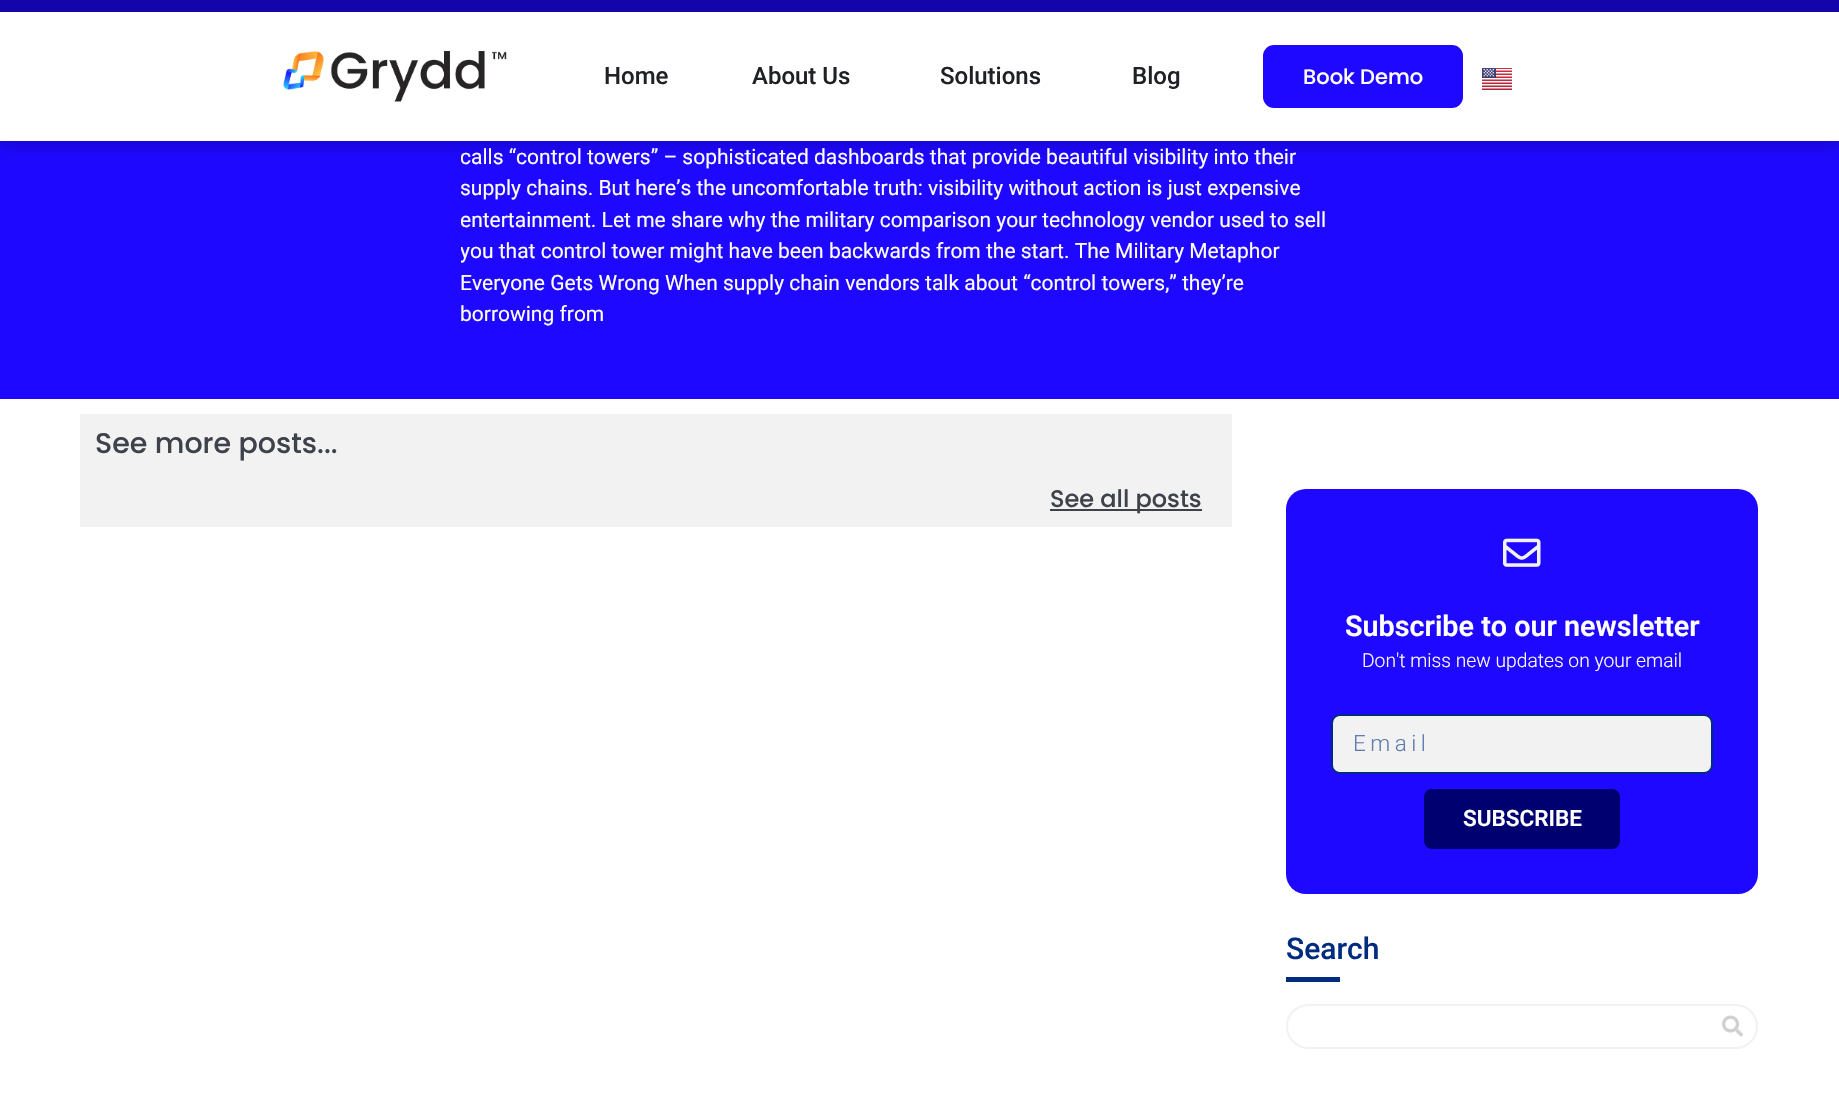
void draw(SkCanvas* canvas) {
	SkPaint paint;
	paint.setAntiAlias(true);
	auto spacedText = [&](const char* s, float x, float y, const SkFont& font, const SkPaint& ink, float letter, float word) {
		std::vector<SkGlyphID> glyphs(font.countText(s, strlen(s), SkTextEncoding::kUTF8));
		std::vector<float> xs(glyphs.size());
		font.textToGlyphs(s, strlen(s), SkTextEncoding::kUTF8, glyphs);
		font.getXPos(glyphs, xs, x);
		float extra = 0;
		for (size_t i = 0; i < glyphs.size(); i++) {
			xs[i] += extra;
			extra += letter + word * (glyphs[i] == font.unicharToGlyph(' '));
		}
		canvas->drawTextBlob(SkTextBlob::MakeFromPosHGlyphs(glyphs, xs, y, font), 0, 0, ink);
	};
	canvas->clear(0xffffffff);
	paint.setColor(0xff1e08ff);
	canvas->drawRect(SkRect::MakeXYWH(0, 141, 1839, 258), paint);
	paint.setColor(0x33000000);
	paint.setMaskFilter(SkMaskFilter::MakeBlur(kNormal_SkBlurStyle, 7.5));
	canvas->drawRect(SkRect::MakeXYWH(-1, 2, 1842, 144), paint);
	paint.setMaskFilter(nullptr);
	paint.setColor(0xffffffff);
	canvas->drawRect(SkRect::MakeXYWH(0, 12, 1839, 129), paint);
	paint.setColor(0xff1405aa);
	canvas->drawRect(SkRect::MakeXYWH(0, 0, 1839, 12), paint);
	canvas->drawImageRect(SkImages::DeferredFromEncodedData(SkData::MakeFromFileName("img1.png")), SkRect::MakeXYWH(283, 51, 224, 51), SkSamplingOptions());
	SkFont f1(fontMgr->matchFamilyStyle("Roboto", SkFontStyle(500, SkFontStyle::kNormal_Width, SkFontStyle::kUpright_Slant)), 24);
	f1.setSubpixel(true);
	paint.setColor(0xff1f2124);
	canvas->drawString("Home", 604, 84, f1, paint);
	canvas->drawString("About Us", 752, 84, f1, paint);
	canvas->drawString("Solutions", 940, 84, f1, paint);
	canvas->drawString("Blog", 1132, 84, f1, paint);
	paint.setColor(0xff1e08ff);
	canvas->drawRoundRect(SkRect::MakeXYWH(1264.5, 46.5, 197, 60), 9.5, 9.5, paint);
	paint.setStroke(true);
	paint.setStrokeWidth(3);
	canvas->drawRoundRect(SkRect::MakeXYWH(1264.5, 46.5, 197, 60), 9.5, 9.5, paint);
	SkFont f2(fontMgr->matchFamilyStyle("Poppins", SkFontStyle(500, SkFontStyle::kNormal_Width, SkFontStyle::kUpright_Slant)), 21);
	f2.setSubpixel(true);
	paint.setStroke(false);
	paint.setColor(0xffffffff);
	canvas->drawString("Book Demo", 1303, 84, f2, paint);
	canvas->drawImageRect(SkImages::DeferredFromEncodedData(SkData::MakeFromFileName("img2.png")), SkRect::MakeXYWH(1482, 68, 30, 22), SkSamplingOptions());
	canvas->save();
	canvas->clipRect(SkRect::MakeXYWH(461, 0, 876, 345));
	SkFont f3(fontMgr->matchFamilyStyle("Roboto", SkFontStyle::Normal()), 21);
	f3.setSubpixel(true);
	canvas->drawString("calls “control towers” – sophisticated dashboards that provide beautiful visibility into their", 460, 164, f3, paint);
	canvas->restore();
	canvas->drawString("supply chains. But here’s the uncomfortable truth: visibility without action is just expensive", 460, 195, f3, paint);
	canvas->save();
	canvas->clipRect(SkRect::MakeXYWH(461, 0, 876, 345));
	canvas->drawString("entertainment. Let me share why the military comparison your technology vendor used to sell", 460, 227, f3, paint);
	canvas->drawString("you that control tower might have been backwards from the start. The Military Metaphor", 460, 258, f3, paint);
	canvas->restore();
	canvas->drawString("Everyone Gets Wrong When supply chain vendors talk about “control towers,” they’re", 460, 290, f3, paint);
	canvas->drawString("borrowing from", 460, 321, f3, paint);
	paint.setColor(0xfff2f2f2);
	canvas->drawRect(SkRect::MakeXYWH(80, 414, 1152, 113), paint);
	SkFont f4(fontMgr->matchFamilyStyle("Poppins", SkFontStyle(500, SkFontStyle::kNormal_Width, SkFontStyle::kUpright_Slant)), 28.5);
	f4.setSubpixel(true);
	paint.setColor(0xff3e424b);
	canvas->drawString("See more posts...", 95, 453, f4, paint);
	canvas->drawRect(SkRect::MakeXYWH(1050, 509, 152, 2), paint);
	SkFont f5(fontMgr->matchFamilyStyle("Poppins", SkFontStyle(500, SkFontStyle::kNormal_Width, SkFontStyle::kUpright_Slant)), 24);
	f5.setSubpixel(true);
	canvas->drawString("See all posts", 1050, 507, f5, paint);
	paint.setColor(0xff1e08ff);
	canvas->drawRoundRect(SkRect::MakeXYWH(1286, 489, 472, 405), 20, 20, paint);
	canvas->drawImageRect(SkImages::DeferredFromEncodedData(SkData::MakeFromFileName("img3.png")), SkRect::MakeXYWH(1503, 538, 38, 29), SkSamplingOptions());
	SkFont f6(fontMgr->matchFamilyStyle("Roboto", SkFontStyle(600, SkFontStyle::kNormal_Width, SkFontStyle::kUpright_Slant)), 28.75);
	f6.setSubpixel(true);
	paint.setColor(0xffffffff);
	canvas->drawString("Subscribe to our newsletter", 1345, 636, f6, paint);
	SkFont f7(fontMgr->matchFamilyStyle("Roboto", SkFontStyle(300, SkFontStyle::kNormal_Width, SkFontStyle::kUpright_Slant)), 19.25);
	f7.setSubpixel(true);
	canvas->drawString("Don't miss new updates on your email", 1362, 667, f7, paint);
	paint.setColor(0xfff2f2f2);
	canvas->drawRoundRect(SkRect::MakeXYWH(1332, 715, 380, 58), 8, 8, paint);
	paint.setStroke(true);
	paint.setStrokeWidth(2);
	paint.setColor(0xff002c7f);
	canvas->drawRoundRect(SkRect::MakeXYWH(1332, 715, 380, 58), 8, 8, paint);
	SkFont f8(fontMgr->matchFamilyStyle("Roboto", SkFontStyle(300, SkFontStyle::kNormal_Width, SkFontStyle::kUpright_Slant)), 22.5);
	f8.setSubpixel(true);
	paint.setStroke(false);
	paint.setColor(0xff617bad);
	spacedText("Email", 1353, 751, f8, paint, 4.5, 0);
	paint.setColor(0xff000070);
	canvas->drawRoundRect(SkRect::MakeXYWH(1425.5, 790.5, 193, 57), 6.5, 6.5, paint);
	paint.setStroke(true);
	paint.setStrokeWidth(3);
	canvas->drawRoundRect(SkRect::MakeXYWH(1425.5, 790.5, 193, 57), 6.5, 6.5, paint);
	SkFont f9(fontMgr->matchFamilyStyle("Roboto", SkFontStyle(600, SkFontStyle::kNormal_Width, SkFontStyle::kUpright_Slant)), 22.5);
	f9.setSubpixel(true);
	paint.setStroke(false);
	paint.setColor(0xffffffff);
	canvas->drawString("SUBSCRIBE", 1463, 826, f9, paint);
	SkFont f10(fontMgr->matchFamilyStyle("Roboto", SkFontStyle(500, SkFontStyle::kNormal_Width, SkFontStyle::kUpright_Slant)), 30);
	f10.setSubpixel(true);
	paint.setColor(0xff002c7f);
	canvas->drawString("Search", 1286, 959, f10, paint);
	canvas->drawRect(SkRect::MakeXYWH(1286, 977, 54, 5), paint);
	paint.setStroke(true);
	paint.setStrokeWidth(2);
	paint.setColor(0xfff2f2f2);
	canvas->drawRoundRect(SkRect::MakeXYWH(1287, 1005, 470, 43), 21.5, 21.5, paint);
	canvas->drawImageRect(SkImages::DeferredFromEncodedData(SkData::MakeFromFileName("img4.png")), SkRect::MakeXYWH(1722, 1015, 21, 22), SkSamplingOptions());
}
